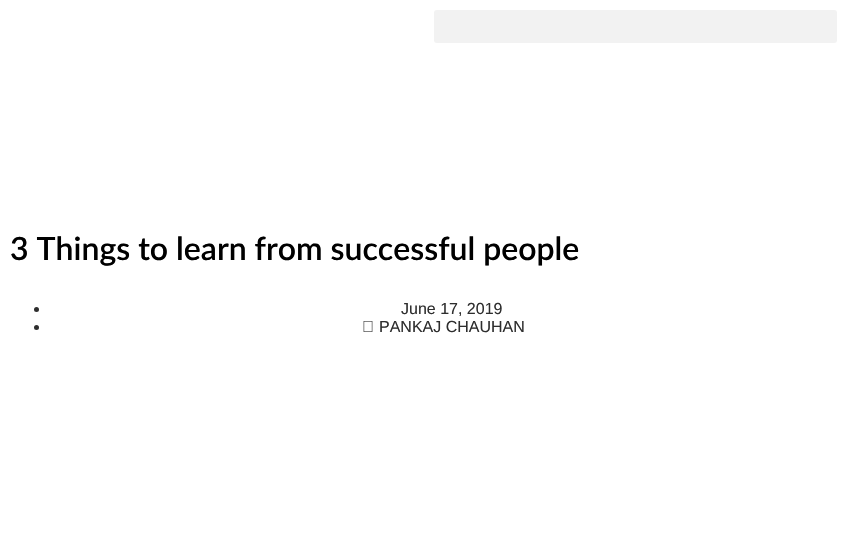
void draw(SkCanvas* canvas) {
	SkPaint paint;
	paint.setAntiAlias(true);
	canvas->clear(0xffffffff);
	paint.setColor(0xfff2f2f2);
	canvas->drawRoundRect(SkRect::MakeXYWH(434, 10, 403, 33), 3, 3, paint);
	SkFont f1(fontMgr->matchFamilyStyle("Lato", SkFontStyle(600, SkFontStyle::kNormal_Width, SkFontStyle::kUpright_Slant)), 32);
	f1.setSubpixel(true);
	paint.setColor(0xff000000);
	canvas->drawString("3 Things to learn from successful people", 10, 260, f1, paint);
	paint.setColor(0xff2e2e2e);
	canvas->drawCircle(36.5, 309.5, 2.5, paint);
	SkFont f2(fontMgr->matchFamilyStyle("Liberation Sans", SkFontStyle::Normal()), 16);
	f2.setSubpixel(true);
	canvas->drawString("June 17, 2019", 401, 314, f2, paint);
	canvas->drawCircle(36.5, 327.5, 2.5, paint);
	canvas->drawImageRect(SkImages::DeferredFromEncodedData(SkData::MakeFromFileName("img1.png")), SkRect::MakeXYWH(363, 321, 10, 11), SkSamplingOptions());
	canvas->drawString("PANKAJ CHAUHAN", 379, 332, f2, paint);
}
